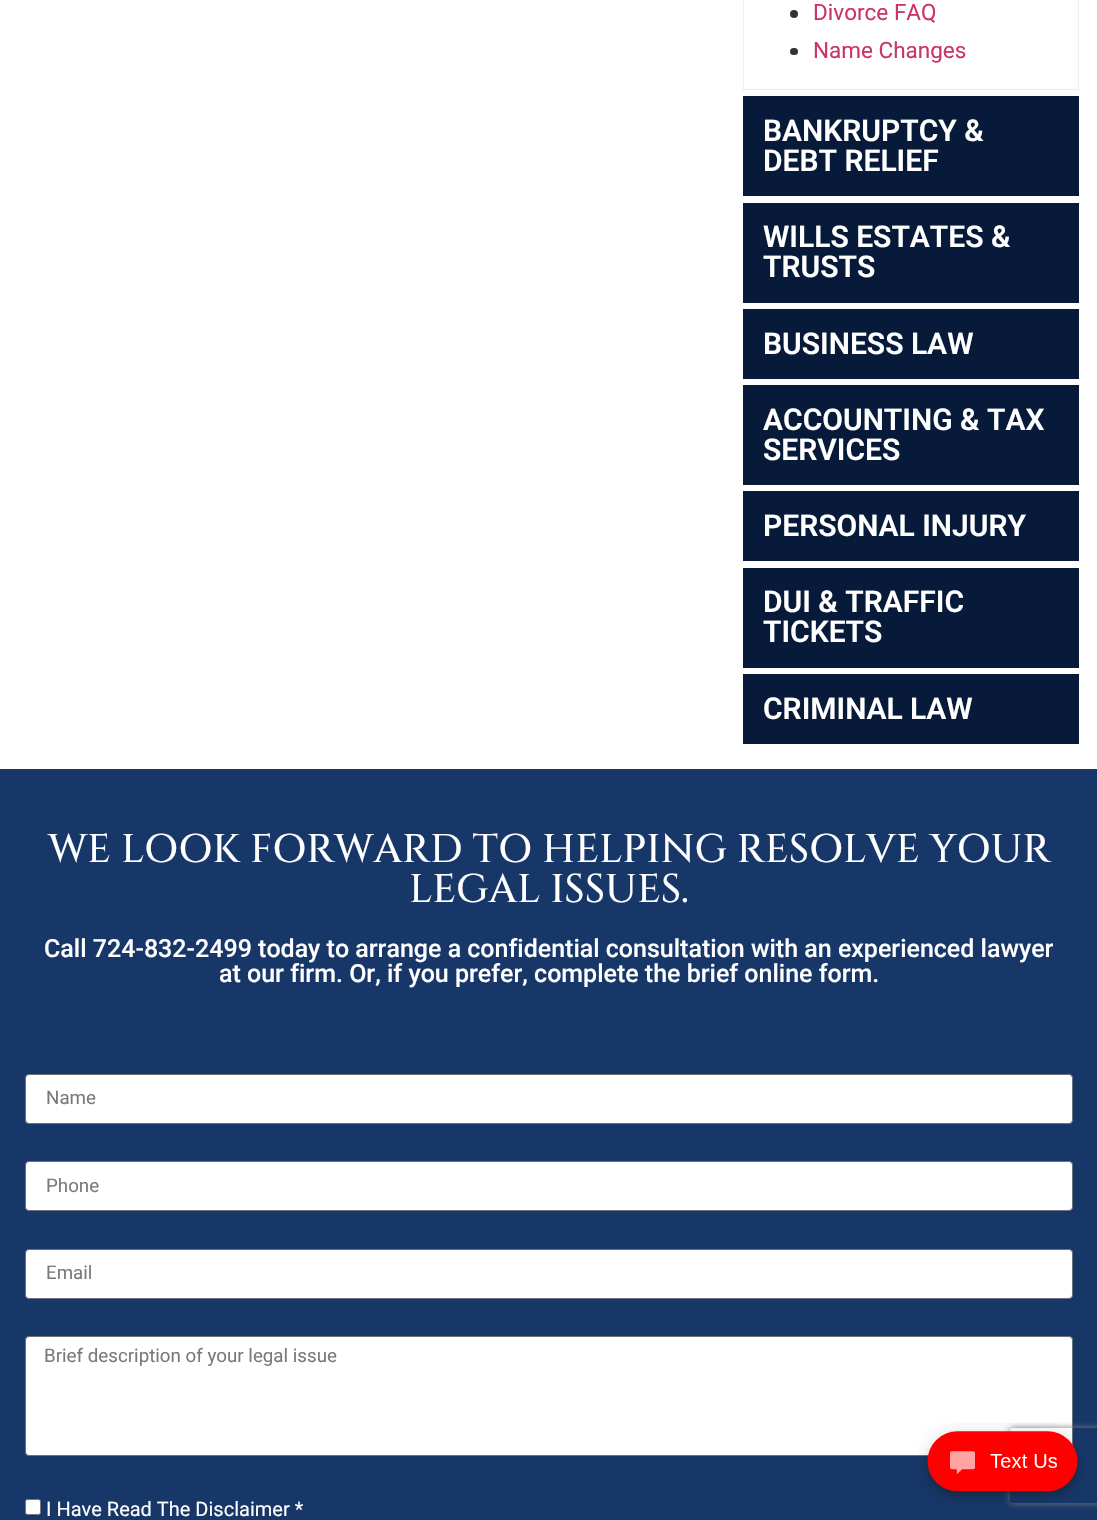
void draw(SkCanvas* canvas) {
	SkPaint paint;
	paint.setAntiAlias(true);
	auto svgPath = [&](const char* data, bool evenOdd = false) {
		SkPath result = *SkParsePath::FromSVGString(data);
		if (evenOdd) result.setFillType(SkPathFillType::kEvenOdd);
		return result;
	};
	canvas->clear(0xffffffff);
	paint.setStroke(true);
	paint.setStrokeWidth(1);
	paint.setColor(0xffeeeeee);
	canvas->drawRect(SkRect::MakeXYWH(743.5, -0.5, 335, 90), paint);
	paint.setStroke(false);
	paint.setColor(0xff333333);
	canvas->drawCircle(794, 14, 4, paint);
	SkFont f1(fontMgr->matchFamilyStyle("Roboto", SkFontStyle::Normal()), 22.5);
	f1.setSubpixel(true);
	paint.setColor(0xffcc3366);
	canvas->drawString("Divorce FAQ", 813, 20, f1, paint);
	paint.setColor(0xff333333);
	canvas->drawRoundRect(SkRect::MakeXYWH(790, 48, 8, 7), 3.5, 3.5, paint);
	paint.setColor(0xffcc3366);
	canvas->drawString("Name Changes", 813, 58, f1, paint);
	paint.setColor(0xff071a3a);
	canvas->drawRect(SkRect::MakeXYWH(743, 96, 336, 100), paint);
	SkFont f2(fontMgr->matchFamilyStyle("Roboto", SkFontStyle(600, SkFontStyle::kNormal_Width, SkFontStyle::kUpright_Slant)), 30);
	f2.setSubpixel(true);
	paint.setColor(0xffffffff);
	canvas->drawString("BANKRUPTCY &", 763, 141, f2, paint);
	canvas->drawString("DEBT RELIEF", 763, 171, f2, paint);
	paint.setColor(0xff071a3a);
	canvas->drawRect(SkRect::MakeXYWH(743, 203, 336, 100), paint);
	paint.setColor(0xffffffff);
	canvas->drawString("WILLS ESTATES &", 763, 247, f2, paint);
	canvas->drawString("TRUSTS", 763, 277, f2, paint);
	paint.setColor(0xff071a3a);
	canvas->drawRect(SkRect::MakeXYWH(743, 309, 336, 70), paint);
	paint.setColor(0xffffffff);
	canvas->drawString("BUSINESS LAW", 763, 354, f2, paint);
	paint.setColor(0xff071a3a);
	canvas->drawRect(SkRect::MakeXYWH(743, 385, 336, 100), paint);
	paint.setColor(0xffffffff);
	canvas->drawString("ACCOUNTING & TAX", 763, 430, f2, paint);
	canvas->drawString("SERVICES", 763, 460, f2, paint);
	paint.setColor(0xff071a3a);
	canvas->drawRect(SkRect::MakeXYWH(743, 491, 336, 70), paint);
	paint.setColor(0xffffffff);
	canvas->drawString("PERSONAL INJURY", 763, 536, f2, paint);
	paint.setColor(0xff071a3a);
	canvas->drawRect(SkRect::MakeXYWH(743, 568, 336, 100), paint);
	paint.setColor(0xffffffff);
	canvas->drawString("DUI & TRAFFIC", 763, 612, f2, paint);
	canvas->drawString("TICKETS", 763, 642, f2, paint);
	paint.setColor(0xff071a3a);
	canvas->drawRect(SkRect::MakeXYWH(743, 674, 336, 70), paint);
	paint.setColor(0xffffffff);
	canvas->drawString("CRIMINAL LAW", 763, 719, f2, paint);
	paint.setColor(0xff173769);
	canvas->drawRect(SkRect::MakeXYWH(0, 769, 1097, 751), paint);
	SkFont f3(fontMgr->matchFamilyStyle("Cinzel", SkFontStyle(500, SkFontStyle::kNormal_Width, SkFontStyle::kUpright_Slant)), 40);
	f3.setSubpixel(true);
	paint.setColor(0xffffffff);
	canvas->drawString("WE LOOK FORWARD TO HELPING RESOLVE YOUR", 48, 862, f3, paint);
	canvas->drawString("LEGAL ISSUES.", 409, 902, f3, paint);
	SkFont f4(fontMgr->matchFamilyStyle("Roboto", SkFontStyle(500, SkFontStyle::kNormal_Width, SkFontStyle::kUpright_Slant)), 25);
	f4.setSubpixel(true);
	canvas->drawString("Call 724-832-2499 today to arrange a confidential consultation with an experienced lawyer", 44, 957, f4, paint);
	canvas->drawString("at our firm. Or, if you prefer, complete the brief online form.", 219, 982, f4, paint);
	canvas->drawRoundRect(SkRect::MakeXYWH(25.5, 1074.5, 1047, 49), 3.5, 3.5, paint);
	paint.setStroke(true);
	paint.setColor(0xff69727d);
	canvas->drawRoundRect(SkRect::MakeXYWH(25.5, 1074.5, 1047, 49), 3.5, 3.5, paint);
	SkFont f5(fontMgr->matchFamilyStyle("Roboto", SkFontStyle::Normal()), 18.75);
	f5.setSubpixel(true);
	paint.setStroke(false);
	paint.setColor(0xff797a7c);
	canvas->drawString("Name", 46, 1104, f5, paint);
	paint.setColor(0xffffffff);
	canvas->drawRoundRect(SkRect::MakeXYWH(25.5, 1161.5, 1047, 49), 3.5, 3.5, paint);
	paint.setStroke(true);
	paint.setColor(0xff69727d);
	canvas->drawRoundRect(SkRect::MakeXYWH(25.5, 1161.5, 1047, 49), 3.5, 3.5, paint);
	paint.setStroke(false);
	paint.setColor(0xff797a7c);
	canvas->drawString("Phone", 46, 1192, f5, paint);
	paint.setColor(0xffffffff);
	canvas->drawRoundRect(SkRect::MakeXYWH(25.5, 1249.5, 1047, 49), 3.5, 3.5, paint);
	paint.setStroke(true);
	paint.setColor(0xff69727d);
	canvas->drawRoundRect(SkRect::MakeXYWH(25.5, 1249.5, 1047, 49), 3.5, 3.5, paint);
	paint.setStroke(false);
	paint.setColor(0xff797a7c);
	canvas->drawString("Email", 46, 1279, f5, paint);
	paint.setColor(0xffffffff);
	canvas->drawRoundRect(SkRect::MakeXYWH(25.5, 1336.5, 1047, 119), 3.5, 3.5, paint);
	paint.setStroke(true);
	paint.setColor(0xff69727d);
	canvas->drawRoundRect(SkRect::MakeXYWH(25.5, 1336.5, 1047, 119), 3.5, 3.5, paint);
	paint.setStroke(false);
	paint.setColor(0xff797a7c);
	canvas->drawString("Brief description of your legal issue", 44, 1362, f5, paint);
	paint.setColor(0xffffffff);
	canvas->drawRoundRect(SkRect::MakeXYWH(25.5, 1499.5, 15, 15), 2, 2, paint);
	paint.setStroke(true);
	paint.setColor(0xff767676);
	canvas->drawRoundRect(SkRect::MakeXYWH(25.5, 1499.5, 15, 15), 2, 2, paint);
	SkFont f6(fontMgr->matchFamilyStyle("Roboto", SkFontStyle::Normal()), 20);
	f6.setSubpixel(true);
	paint.setStroke(false);
	paint.setColor(0xffffffff);
	canvas->drawString("I Have Read The Disclaimer *", 46, 1516, f6, paint);
	canvas->save();
	canvas->clipPath(svgPath("M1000 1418H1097V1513H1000ZM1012.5 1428H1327.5C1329 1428 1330 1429 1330 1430.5V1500.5C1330 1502 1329 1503 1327.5 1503H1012.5C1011 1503 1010 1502 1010 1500.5V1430.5C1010 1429 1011 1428 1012.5 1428Z", true), true);
	paint.setColor(0xff808080);
	paint.setMaskFilter(SkMaskFilter::MakeBlur(kNormal_SkBlurStyle, 3));
	canvas->drawRoundRect(SkRect::MakeXYWH(1010, 1428, 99, 75), 2.5, 2.5, paint);
	paint.setMaskFilter(nullptr);
	canvas->restore();
	canvas->drawImageRect(SkImages::DeferredFromEncodedData(SkData::MakeFromFileName("img1.png")), SkRect::MakeXYWH(919, 1423, 165, 81), SkSamplingOptions());
}
